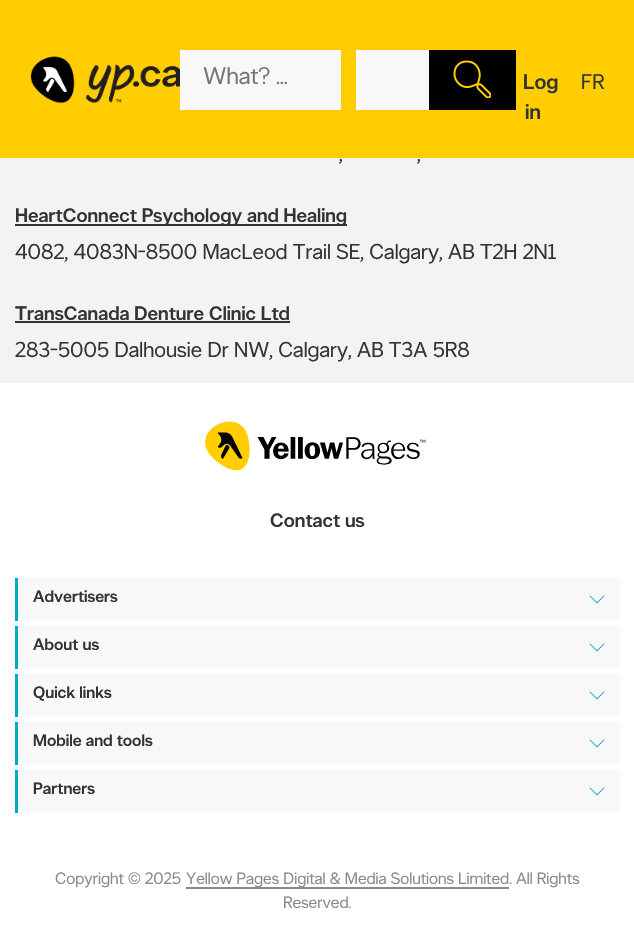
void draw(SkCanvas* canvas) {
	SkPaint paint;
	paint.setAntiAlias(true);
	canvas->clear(0xfff3f3f3);
	paint.setColor(0xffffcd00);
	canvas->drawRect(SkRect::MakeXYWH(0, 0, 634, 158), paint);
	canvas->drawImageRect(SkImages::DeferredFromEncodedData(SkData::MakeFromFileName("img1.png")), SkRect::MakeXYWH(30, 56, 150, 48), SkSamplingOptions());
	paint.setColor(0xfff8f8f8);
	canvas->drawRect(SkRect::MakeXYWH(180, 50, 161, 60), paint);
	SkFont f1(fontMgr->matchFamilyStyle("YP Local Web", SkFontStyle::Normal()), 24);
	f1.setSubpixel(true);
	paint.setColor(0xff757575);
	canvas->drawString("What? …", 203, 84, f1, paint);
	paint.setColor(0xfff8f8f8);
	canvas->drawRect(SkRect::MakeXYWH(356, 50, 73, 60), paint);
	paint.setColor(0xff000000);
	canvas->drawRect(SkRect::MakeXYWH(429, 50, 87, 60), paint);
	canvas->drawImageRect(SkImages::DeferredFromEncodedData(SkData::MakeFromFileName("img2.png")), SkRect::MakeXYWH(453, 60, 38, 38), SkSamplingOptions());
	SkFont f2(fontMgr->matchFamilyStyle("YP Local Web", SkFontStyle(500, SkFontStyle::kNormal_Width, SkFontStyle::kUpright_Slant)), 21);
	f2.setSubpixel(true);
	paint.setColor(0xff333333);
	canvas->drawString("Log", 523, 89, f2, paint);
	canvas->drawString("in", 525, 119, f2, paint);
	SkFont f3(fontMgr->matchFamilyStyle("YP Local Web", SkFontStyle::Normal()), 21);
	f3.setSubpixel(true);
	canvas->drawString("FR", 581, 89, f3, paint);
	SkFont f4(fontMgr->matchFamilyStyle("YP Local Web", SkFontStyle::Normal()), 21.6);
	f4.setSubpixel(true);
	canvas->drawString(",", 339, 161, f4, paint);
	canvas->drawString(",", 417, 161, f4, paint);
	canvas->drawRect(SkRect::MakeXYWH(15, 224, 332, 2), paint);
	SkFont f5(fontMgr->matchFamilyStyle("YP Local Web", SkFontStyle(500, SkFontStyle::kNormal_Width, SkFontStyle::kUpright_Slant)), 19.5);
	f5.setSubpixel(true);
	canvas->drawString("HeartConnect Psychology and Healing", 15, 222, f5, paint);
	canvas->drawString("4082, 4083N-8500 MacLeod Trail SE, Calgary, AB T2H 2N1", 15, 259, f4, paint);
	canvas->drawString("TransCanada Denture Clinic Ltd", 15, 320, f5, paint);
	canvas->drawRect(SkRect::MakeXYWH(15, 321, 275, 2), paint);
	canvas->drawString("283-5005 Dalhousie Dr NW, Calgary, AB T3A 5R8", 15, 357, f4, paint);
	paint.setColor(0xffffffff);
	canvas->drawRect(SkRect::MakeXYWH(0, 383, 634, 562), paint);
	canvas->drawImageRect(SkImages::DeferredFromEncodedData(SkData::MakeFromFileName("img3.png")), SkRect::MakeXYWH(205, 421, 221, 50), SkSamplingOptions());
	paint.setColor(0xff333333);
	canvas->drawString("Contact us", 270, 527, f5, paint);
	paint.setColor(0xfff8f8f8);
	canvas->drawRect(SkRect::MakeXYWH(18, 578, 602, 43), paint);
	paint.setColor(0xff00aabc);
	canvas->drawRect(SkRect::MakeXYWH(15, 578, 3, 43), paint);
	SkFont f6(fontMgr->matchFamilyStyle("YP Local Web", SkFontStyle(500, SkFontStyle::kNormal_Width, SkFontStyle::kUpright_Slant)), 16.5);
	f6.setSubpixel(true);
	paint.setColor(0xff333333);
	canvas->drawString("Advertisers", 33, 602, f6, paint);
	canvas->drawImageRect(SkImages::DeferredFromEncodedData(SkData::MakeFromFileName("img4.png")), SkRect::MakeXYWH(589, 595, 16, 9), SkSamplingOptions());
	paint.setColor(0xfff8f8f8);
	canvas->drawRect(SkRect::MakeXYWH(18, 626, 602, 43), paint);
	paint.setColor(0xff00aabc);
	canvas->drawRect(SkRect::MakeXYWH(15, 626, 3, 43), paint);
	paint.setColor(0xff333333);
	canvas->drawString("About us", 33, 650, f6, paint);
	canvas->drawImageRect(SkImages::DeferredFromEncodedData(SkData::MakeFromFileName("img4.png")), SkRect::MakeXYWH(589, 643, 16, 9), SkSamplingOptions());
	paint.setColor(0xfff8f8f8);
	canvas->drawRect(SkRect::MakeXYWH(18, 674, 602, 43), paint);
	paint.setColor(0xff00aabc);
	canvas->drawRect(SkRect::MakeXYWH(15, 674, 3, 43), paint);
	paint.setColor(0xff333333);
	canvas->drawString("Quick links", 33, 698, f6, paint);
	canvas->drawImageRect(SkImages::DeferredFromEncodedData(SkData::MakeFromFileName("img4.png")), SkRect::MakeXYWH(589, 691, 16, 9), SkSamplingOptions());
	paint.setColor(0xfff8f8f8);
	canvas->drawRect(SkRect::MakeXYWH(18, 722, 602, 43), paint);
	paint.setColor(0xff00aabc);
	canvas->drawRect(SkRect::MakeXYWH(15, 722, 3, 43), paint);
	paint.setColor(0xff333333);
	canvas->drawString("Mobile and tools", 33, 746, f6, paint);
	canvas->drawImageRect(SkImages::DeferredFromEncodedData(SkData::MakeFromFileName("img4.png")), SkRect::MakeXYWH(589, 739, 16, 9), SkSamplingOptions());
	paint.setColor(0xfff8f8f8);
	canvas->drawRect(SkRect::MakeXYWH(18, 770, 602, 43), paint);
	paint.setColor(0xff00aabc);
	canvas->drawRect(SkRect::MakeXYWH(15, 770, 3, 43), paint);
	paint.setColor(0xff333333);
	canvas->drawString("Partners", 33, 794, f6, paint);
	canvas->drawImageRect(SkImages::DeferredFromEncodedData(SkData::MakeFromFileName("img4.png")), SkRect::MakeXYWH(589, 787, 16, 9), SkSamplingOptions());
	SkFont f7(fontMgr->matchFamilyStyle("YP Local Web", SkFontStyle::Normal()), 16.5);
	f7.setSubpixel(true);
	paint.setColor(0xff8a8a8a);
	canvas->drawString("Copyright © 2025", 55, 884, f7, paint);
	canvas->drawRect(SkRect::MakeXYWH(186, 887, 323, 2), paint);
	canvas->drawString("Yellow Pages Digital & Media Solutions Limited. All Rights", 186, 884, f7, paint);
	canvas->drawString("Reserved.", 283, 908, f7, paint);
}
